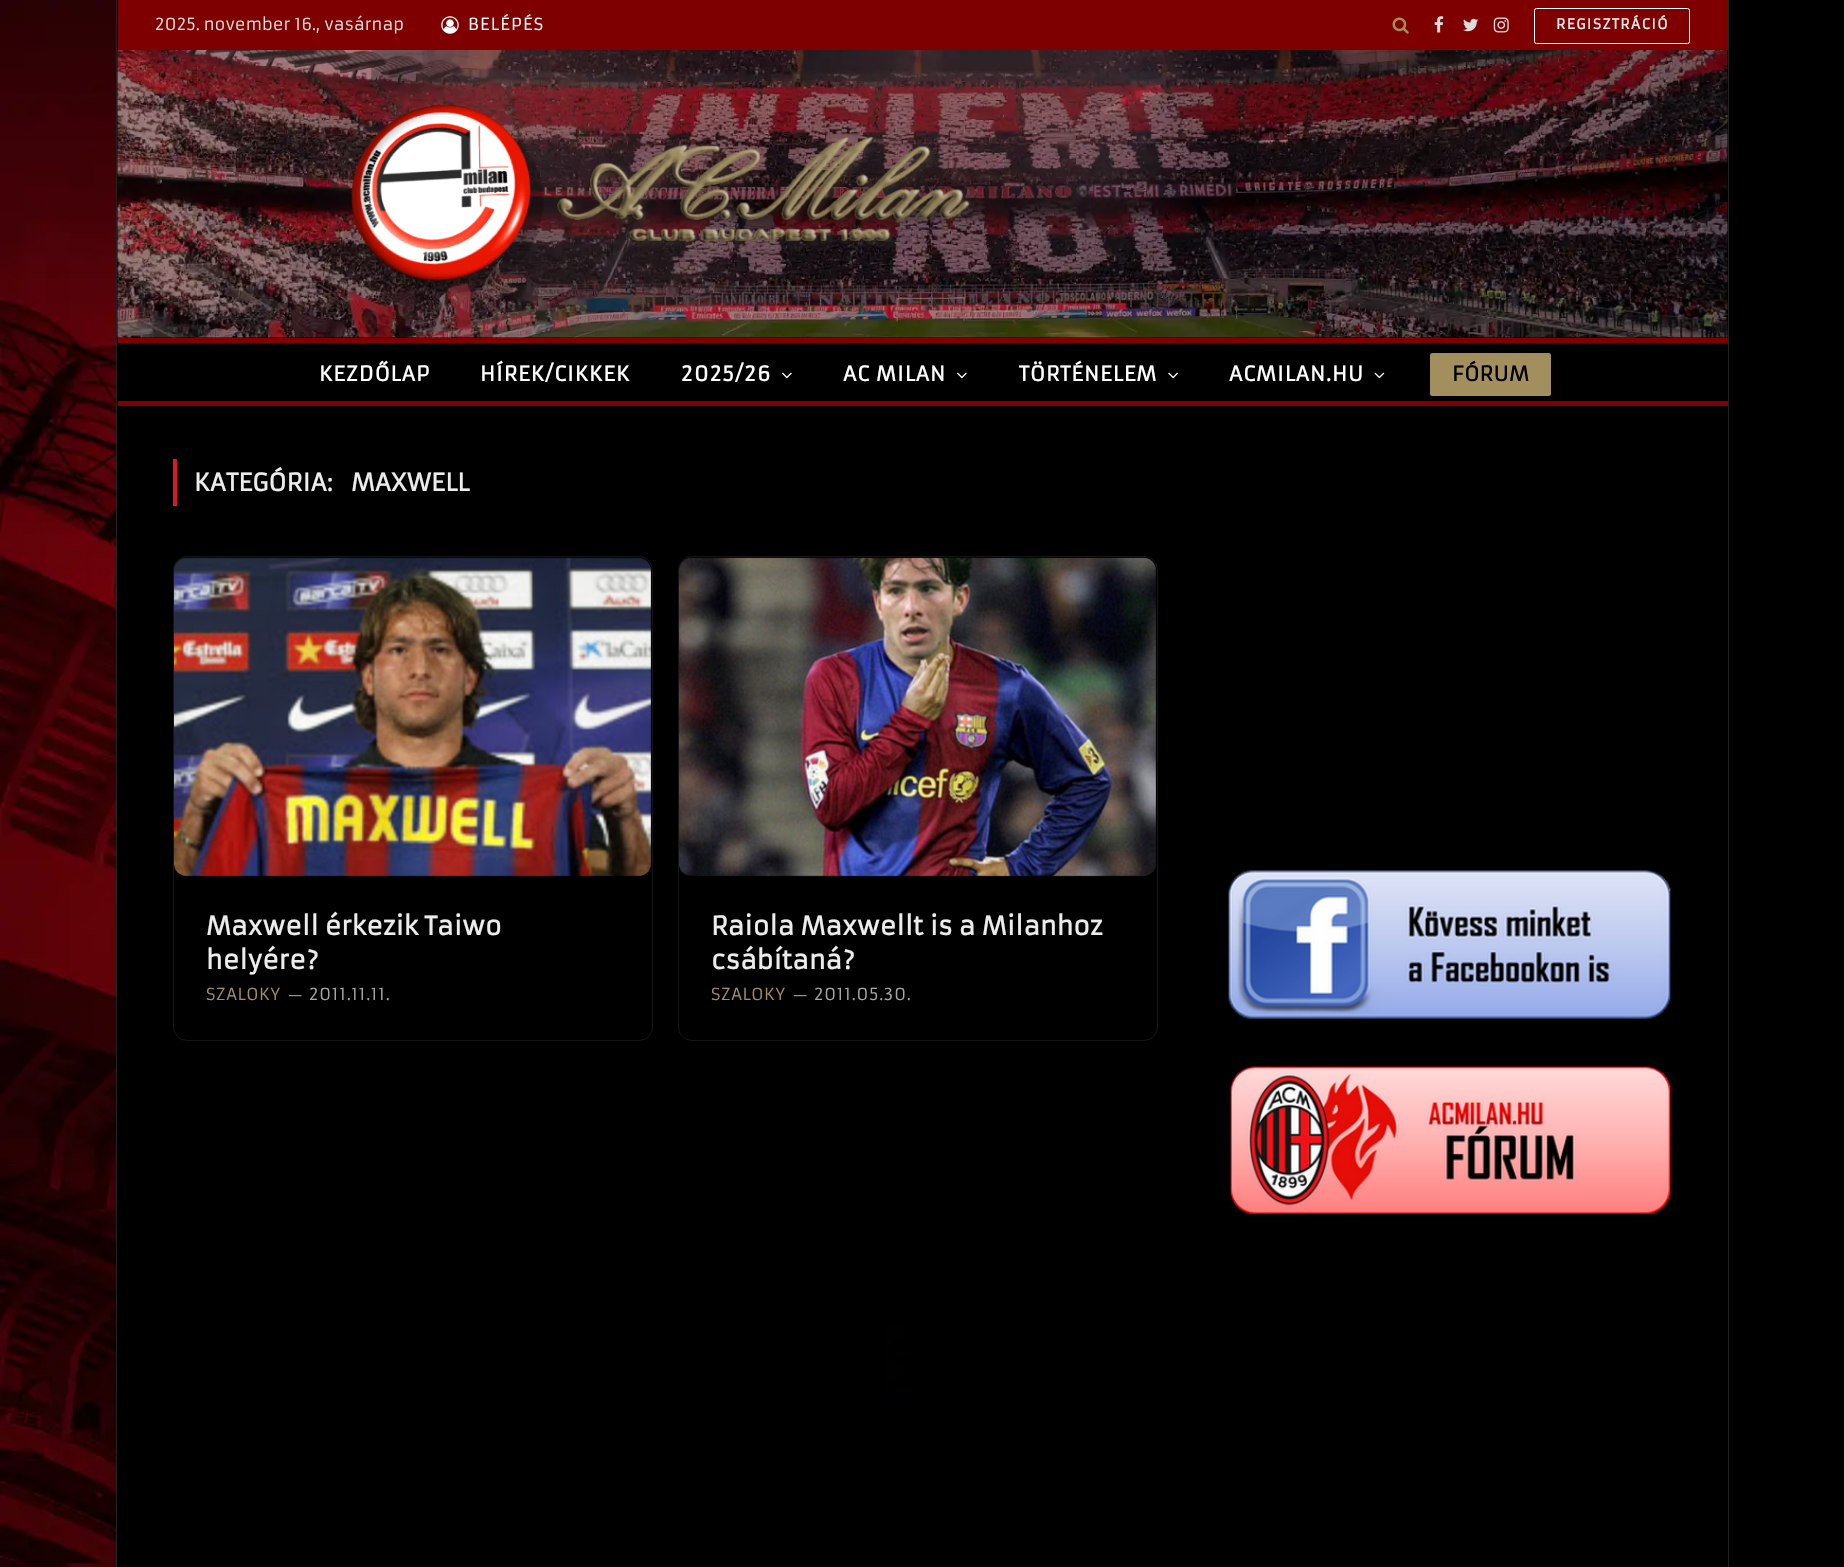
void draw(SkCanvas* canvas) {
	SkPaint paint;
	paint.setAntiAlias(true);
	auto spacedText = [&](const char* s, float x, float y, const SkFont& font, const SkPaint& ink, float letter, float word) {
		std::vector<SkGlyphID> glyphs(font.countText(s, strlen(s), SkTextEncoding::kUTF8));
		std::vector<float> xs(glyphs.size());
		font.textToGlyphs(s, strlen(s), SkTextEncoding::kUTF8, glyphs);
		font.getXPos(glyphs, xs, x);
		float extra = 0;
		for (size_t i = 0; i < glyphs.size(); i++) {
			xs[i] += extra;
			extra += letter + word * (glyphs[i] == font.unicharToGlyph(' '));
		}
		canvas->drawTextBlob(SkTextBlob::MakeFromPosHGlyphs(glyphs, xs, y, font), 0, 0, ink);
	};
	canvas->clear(0xffffffff);
	canvas->drawImageRect(SkImages::DeferredFromEncodedData(SkData::MakeFromFileName("img1.png")), SkRect::MakeXYWH(0, 0, 1844, 1567), SkSamplingOptions());
	paint.setColor(0xff000000);
	canvas->drawRect(SkRect::MakeXYWH(117, 0, 768, 1567), paint);
	paint.setColor(0xff222222);
	canvas->drawRect(SkRect::MakeXYWH(1728, 0, 1, 1567), paint);
	canvas->drawRect(SkRect::MakeXYWH(116, 0, 1, 1567), paint);
	paint.setColor(0xff7e0000);
	canvas->drawRect(SkRect::MakeXYWH(118, 0, 1610, 50), paint);
	SkFont f1(fontMgr->matchFamilyStyle("Armata", SkFontStyle::Normal()), 16.25);
	f1.setSubpixel(true);
	paint.setColor(0xffdddddd);
	canvas->drawString("2025. november 16., vasárnap", 155, 30, f1, paint);
	canvas->drawImageRect(SkImages::DeferredFromEncodedData(SkData::MakeFromFileName("img2.png")), SkRect::MakeXYWH(441, 16, 18, 18), SkSamplingOptions());
	paint.setColor(0xffffffff);
	spacedText("BELÉPÉS", 468, 30, f1, paint, 1.25, 0);
	canvas->drawImageRect(SkImages::DeferredFromEncodedData(SkData::MakeFromFileName("img3.png")), SkRect::MakeXYWH(1392, 17, 17, 17), SkSamplingOptions());
	canvas->drawImageRect(SkImages::DeferredFromEncodedData(SkData::MakeFromFileName("img4.png")), SkRect::MakeXYWH(1434, 16, 10, 17), SkSamplingOptions());
	canvas->drawImageRect(SkImages::DeferredFromEncodedData(SkData::MakeFromFileName("img5.png")), SkRect::MakeXYWH(1463, 18, 16, 14), SkSamplingOptions());
	canvas->drawImageRect(SkImages::DeferredFromEncodedData(SkData::MakeFromFileName("img6.png")), SkRect::MakeXYWH(1493, 17, 16, 16), SkSamplingOptions());
	paint.setStroke(true);
	paint.setStrokeWidth(1);
	canvas->drawRoundRect(SkRect::MakeXYWH(1534.5, 8.5, 155, 35), 2, 2, paint);
	SkFont f2(fontMgr->matchFamilyStyle("Armata", SkFontStyle::Bold()), 13.75);
	f2.setSubpixel(true);
	paint.setStroke(false);
	paint.setColor(0xffececec);
	spacedText("REGISZTRÁCIÓ", 1556, 29, f2, paint, 1.5, 0);
	canvas->drawImageRect(SkImages::DeferredFromEncodedData(SkData::MakeFromFileName("img7.png")), SkRect::MakeXYWH(117, 50, 1611, 288), SkSamplingOptions());
	canvas->drawImageRect(SkImages::DeferredFromEncodedData(SkData::MakeFromFileName("img8.png")), SkRect::MakeXYWH(351, 104, 622, 190), SkSamplingOptions());
	paint.setColor(0xff7e0000);
	canvas->drawRect(SkRect::MakeXYWH(118, 338, 1610, 5), paint);
	canvas->drawRect(SkRect::MakeXYWH(118, 401, 1610, 5), paint);
	SkFont f3(fontMgr->matchFamilyStyle("Armata", SkFontStyle::Bold()), 20);
	f3.setSubpixel(true);
	paint.setColor(0xffffffff);
	spacedText("KEZDŐLAP", 319, 381, f3, paint, 1, 0);
	spacedText("HÍREK/CIKKEK", 480, 381, f3, paint, 1, 0);
	spacedText("2025/26", 681, 381, f3, paint, 1, 0);
	canvas->drawImageRect(SkImages::DeferredFromEncodedData(SkData::MakeFromFileName("img9.png")), SkRect::MakeXYWH(782, 372, 10, 7), SkSamplingOptions());
	spacedText("AC MILAN", 843, 381, f3, paint, 1, 0);
	canvas->drawImageRect(SkImages::DeferredFromEncodedData(SkData::MakeFromFileName("img9.png")), SkRect::MakeXYWH(957, 372, 10, 7), SkSamplingOptions());
	spacedText("TÖRTÉNELEM", 1019, 381, f3, paint, 1, 0);
	canvas->drawImageRect(SkImages::DeferredFromEncodedData(SkData::MakeFromFileName("img10.png")), SkRect::MakeXYWH(1168, 372, 10, 7), SkSamplingOptions());
	spacedText("ACMILAN.HU", 1229, 381, f3, paint, 1, 0);
	canvas->drawImageRect(SkImages::DeferredFromEncodedData(SkData::MakeFromFileName("img11.png")), SkRect::MakeXYWH(1374, 372, 11, 7), SkSamplingOptions());
	paint.setColor(0xffa38f5d);
	canvas->drawRoundRect(SkRect::MakeXYWH(1430, 353, 121, 43), 2.5, 2.5, paint);
	paint.setColor(0xff000000);
	spacedText("FÓRUM", 1452, 381, f3, paint, 0.5, 0);
	paint.setColor(0xffdd1824);
	canvas->drawRect(SkRect::MakeXYWH(173, 459, 4, 47), paint);
	SkFont f4(fontMgr->matchFamilyStyle("Armata", SkFontStyle::Bold()), 23.75);
	f4.setSubpixel(true);
	paint.setColor(0xffececec);
	spacedText("KATEGÓRIA:", 194, 491, f4, paint, 0.25, 0);
	spacedText("MAXWELL", 351, 491, f4, paint, 0.25, 0);
	paint.setStroke(true);
	paint.setColor(0xff151515);
	canvas->drawRoundRect(SkRect::MakeXYWH(173.5, 556.5, 479, 484), 13.5, 13.5, paint);
	canvas->drawImageRect(SkImages::DeferredFromEncodedData(SkData::MakeFromFileName("img12.png")), SkRect::MakeXYWH(174, 557, 478, 320), SkSamplingOptions());
	SkFont f5(fontMgr->matchFamilyStyle("Armata", SkFontStyle::Bold()), 25);
	f5.setSubpixel(true);
	paint.setStroke(false);
	paint.setColor(0xffececec);
	canvas->drawString("Maxwell érkezik Taiwo", 206, 935, f5, paint);
	canvas->drawString("helyére?", 206, 969, f5, paint);
	paint.setColor(0xffa38f5d);
	spacedText("SZALOKY", 206, 1000, f1, paint, 0.6, 0);
	SkFont f6(fontMgr->matchFamilyStyle("Armata", SkFontStyle::Normal()), 15);
	f6.setSubpixel(true);
	paint.setColor(0xffa6a6a6);
	spacedText("—", 287, 1000, f6, paint, 0.5, 0);
	spacedText("2011.11.11.", 309, 1000, f1, paint, 0.6, 0);
	paint.setStroke(true);
	paint.setColor(0xff151515);
	canvas->drawRoundRect(SkRect::MakeXYWH(678.5, 556.5, 479, 484), 13.5, 13.5, paint);
	canvas->drawImageRect(SkImages::DeferredFromEncodedData(SkData::MakeFromFileName("img13.png")), SkRect::MakeXYWH(679, 557, 477, 320), SkSamplingOptions());
	paint.setStroke(false);
	paint.setColor(0xffececec);
	canvas->drawString("Raiola Maxwellt is a Milanhoz", 711, 935, f5, paint);
	canvas->drawString("csábítaná?", 711, 969, f5, paint);
	paint.setColor(0xffa38f5d);
	spacedText("SZALOKY", 711, 1000, f1, paint, 0.6, 0);
	paint.setColor(0xffa6a6a6);
	spacedText("—", 792, 1000, f6, paint, 0.5, 0);
	spacedText("2011.05.30.", 814, 1000, f1, paint, 0.6, 0);
	canvas->drawImageRect(SkImages::DeferredFromEncodedData(SkData::MakeFromFileName("img14.png")), SkRect::MakeXYWH(1228, 870, 443, 149), SkSamplingOptions());
	canvas->drawImageRect(SkImages::DeferredFromEncodedData(SkData::MakeFromFileName("img15.png")), SkRect::MakeXYWH(1230, 1066, 441, 148), SkSamplingOptions());
}
